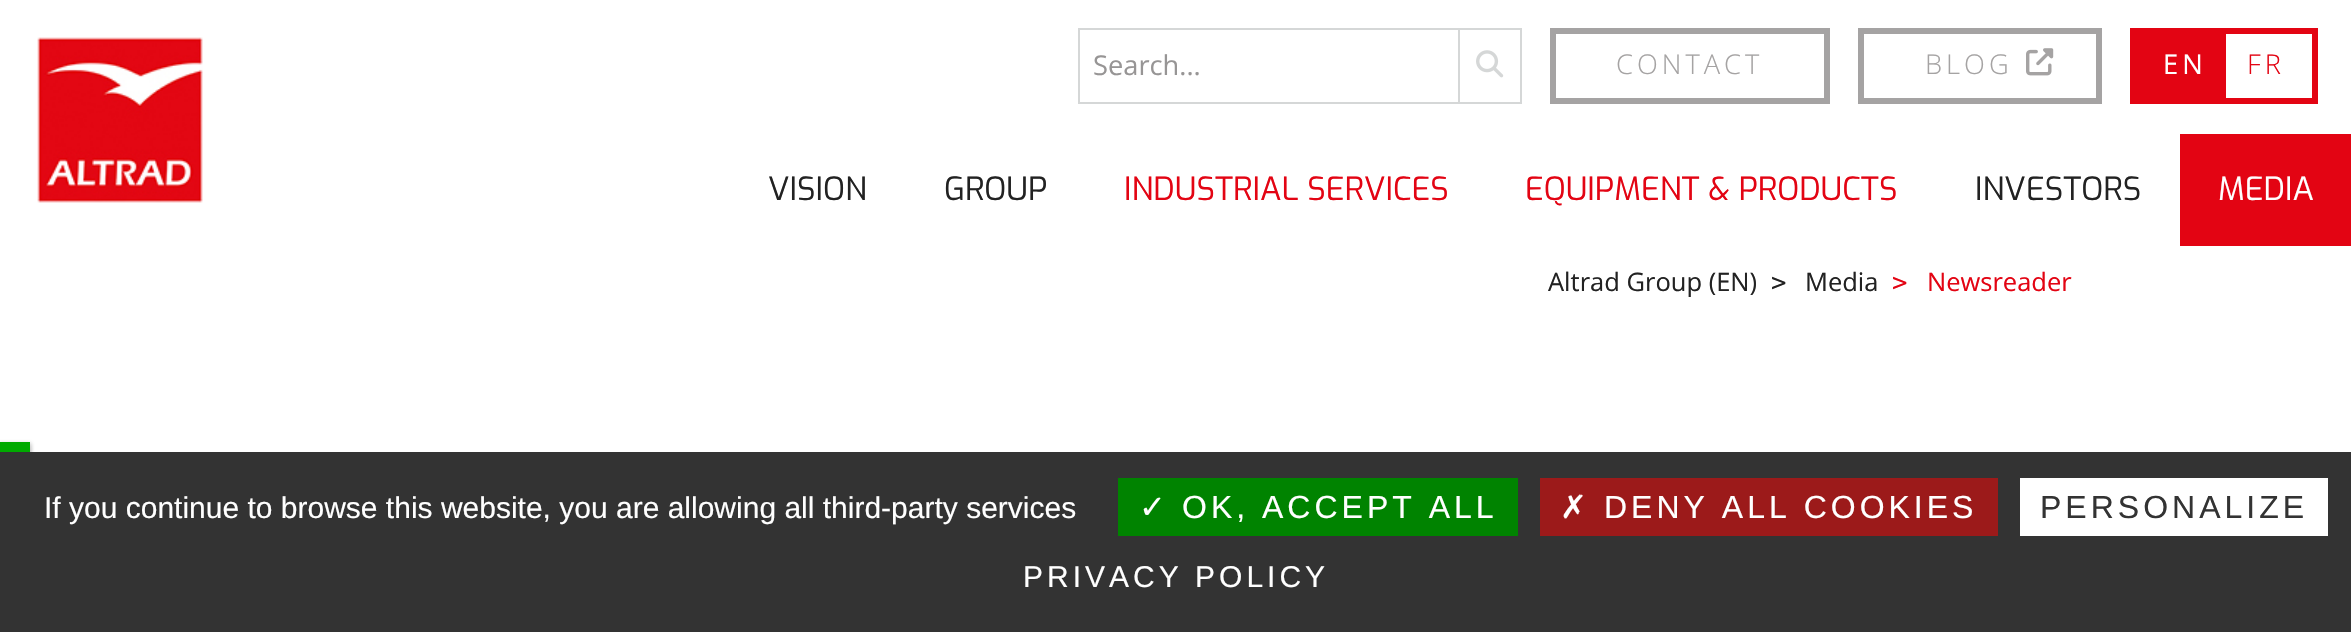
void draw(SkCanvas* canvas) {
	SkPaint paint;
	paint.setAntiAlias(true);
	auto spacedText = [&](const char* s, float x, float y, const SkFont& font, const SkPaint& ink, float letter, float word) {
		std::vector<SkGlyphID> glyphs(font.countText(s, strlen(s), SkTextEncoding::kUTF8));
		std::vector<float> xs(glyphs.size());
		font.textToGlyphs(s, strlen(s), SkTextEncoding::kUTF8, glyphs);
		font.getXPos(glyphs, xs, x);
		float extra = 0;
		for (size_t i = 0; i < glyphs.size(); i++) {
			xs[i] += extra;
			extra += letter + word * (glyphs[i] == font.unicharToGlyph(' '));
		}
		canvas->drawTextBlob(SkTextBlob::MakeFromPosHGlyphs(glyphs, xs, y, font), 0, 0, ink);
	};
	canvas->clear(0xffffffff);
	canvas->drawImageRect(SkImages::DeferredFromEncodedData(SkData::MakeFromFileName("img1.png")), SkRect::MakeXYWH(37, 37, 166, 166), SkSamplingOptions());
	paint.setColor(0xffd5d7d7);
	canvas->drawRect(SkRect::MakeXYWH(1078, 28, 380, 2), paint);
	canvas->drawRect(SkRect::MakeXYWH(1078, 102, 380, 2), paint);
	canvas->drawRect(SkRect::MakeXYWH(1078, 28, 2, 76), paint);
	SkFont f1(fontMgr->matchFamilyStyle("Open Sans", SkFontStyle::Normal()), 27.25);
	f1.setSubpixel(true);
	paint.setColor(0xff979595);
	canvas->drawString("Search...", 1093, 75, f1, paint);
	paint.setStroke(true);
	paint.setStrokeWidth(2);
	paint.setColor(0xffd5d7d7);
	canvas->drawRect(SkRect::MakeXYWH(1459, 29, 62, 74), paint);
	canvas->drawImageRect(SkImages::DeferredFromEncodedData(SkData::MakeFromFileName("img2.png")), SkRect::MakeXYWH(1476, 50, 28, 28), SkSamplingOptions());
	paint.setStrokeWidth(6);
	paint.setColor(0xffa5a3a3);
	canvas->drawRect(SkRect::MakeXYWH(1553, 31, 274, 70), paint);
	SkFont f2(fontMgr->matchFamilyStyle("Open Sans", SkFontStyle(300, SkFontStyle::kNormal_Width, SkFontStyle::kUpright_Slant)), 27.25);
	f2.setSubpixel(true);
	paint.setStroke(false);
	spacedText("CONTACT", 1616, 74, f2, paint, 4, 0);
	paint.setStroke(true);
	canvas->drawRect(SkRect::MakeXYWH(1861, 31, 238, 70), paint);
	paint.setStroke(false);
	spacedText("BLOG", 1925, 74, f2, paint, 4, 0);
	canvas->drawImageRect(SkImages::DeferredFromEncodedData(SkData::MakeFromFileName("img3.png")), SkRect::MakeXYWH(2026, 48, 28, 28), SkSamplingOptions());
	paint.setColor(0xffe30413);
	canvas->drawRect(SkRect::MakeXYWH(2130, 28, 96, 76), paint);
	paint.setColor(0xffffffff);
	spacedText("EN", 2163, 74, f1, paint, 4, 0);
	paint.setColor(0xffe30413);
	canvas->drawRect(SkRect::MakeXYWH(2226, 28, 92, 6), paint);
	canvas->drawRect(SkRect::MakeXYWH(2312, 28, 6, 76), paint);
	canvas->drawRect(SkRect::MakeXYWH(2226, 98, 92, 6), paint);
	spacedText("FR", 2247, 74, f2, paint, 4, 0);
	SkFont f3(fontMgr->matchFamilyStyle("Exo", SkFontStyle::Normal()), 32);
	f3.setSubpixel(true);
	paint.setColor(0xff222222);
	canvas->drawString("VISION", 768, 200, f3, paint);
	canvas->drawString("GROUP", 944, 200, f3, paint);
	paint.setColor(0xffe30413);
	canvas->drawString("INDUSTRIAL SERVICES", 1124, 200, f3, paint);
	canvas->drawString("EQUIPMENT & PRODUCTS", 1525, 200, f3, paint);
	paint.setColor(0xff222222);
	canvas->drawString("INVESTORS", 1975, 200, f3, paint);
	paint.setColor(0xffe30413);
	canvas->drawRect(SkRect::MakeXYWH(2180, 134, 171, 112), paint);
	paint.setColor(0xffffffff);
	canvas->drawString("MEDIA", 2218, 200, f3, paint);
	SkFont f4(fontMgr->matchFamilyStyle("Open Sans", SkFontStyle::Normal()), 25.5);
	f4.setSubpixel(true);
	paint.setColor(0xff222222);
	canvas->drawString("Altrad Group (EN)", 1548, 291, f4, paint);
	SkFont f5(fontMgr->matchFamilyStyle("DejaVu Sans Mono", SkFontStyle::Normal()), 25.5);
	f5.setSubpixel(true);
	canvas->drawString(">", 1771, 291, f5, paint);
	canvas->drawString("Media", 1805, 291, f4, paint);
	paint.setColor(0xffe30413);
	canvas->drawString(">", 1892, 291, f5, paint);
	canvas->drawString("Newsreader", 1927, 291, f4, paint);
	paint.setColor(0xff555555);
	paint.setMaskFilter(SkMaskFilter::MakeBlur(kNormal_SkBlurStyle, 2));
	canvas->drawRect(SkRect::MakeXYWH(0, 444, 30, 10), paint);
	paint.setMaskFilter(nullptr);
	paint.setColor(0xffffffff);
	paint.setMaskFilter(SkMaskFilter::MakeBlur(kNormal_SkBlurStyle, 2));
	canvas->drawRect(SkRect::MakeXYWH(0, 442, 30, 10), paint);
	paint.setMaskFilter(nullptr);
	paint.setColor(0xff00aa00);
	canvas->drawRect(SkRect::MakeXYWH(0, 442, 30, 10), paint);
	paint.setColor(0xff333333);
	canvas->drawRect(SkRect::MakeXYWH(0, 452, 2351, 180), paint);
	SkFont f6(fontMgr->matchFamilyStyle("Liberation Sans", SkFontStyle::Normal()), 30);
	f6.setSubpixel(true);
	paint.setColor(0xffffffff);
	canvas->drawString("If you continue to browse this website, you are allowing all third-party services", 44, 518, f6, paint);
	paint.setColor(0xff008300);
	canvas->drawRect(SkRect::MakeXYWH(1118, 478, 400, 58), paint);
	SkFont f7(fontMgr->matchFamilyStyle("DejaVu Sans", SkFontStyle::Normal()), 32);
	f7.setSubpixel(true);
	paint.setColor(0xffffffff);
	spacedText("✓", 1139, 518, f7, paint, 4, 0);
	SkFont f8(fontMgr->matchFamilyStyle("Liberation Sans", SkFontStyle::Normal()), 32);
	f8.setSubpixel(true);
	spacedText("OK, ACCEPT ALL", 1182, 518, f8, paint, 4, 0);
	paint.setColor(0xff9c1a1a);
	canvas->drawRect(SkRect::MakeXYWH(1540, 478, 458, 58), paint);
	paint.setColor(0xffffffff);
	spacedText("✗", 1560, 518, f7, paint, 4, 0);
	spacedText("DENY ALL COOKIES", 1604, 518, f8, paint, 4, 0);
	canvas->drawRect(SkRect::MakeXYWH(2020, 478, 308, 58), paint);
	paint.setColor(0xff333333);
	spacedText("PERSONALIZE", 2040, 518, f8, paint, 4, 0);
	paint.setColor(0xffffffff);
	spacedText("PRIVACY POLICY", 1023, 587, f6, paint, 4, 0);
}
